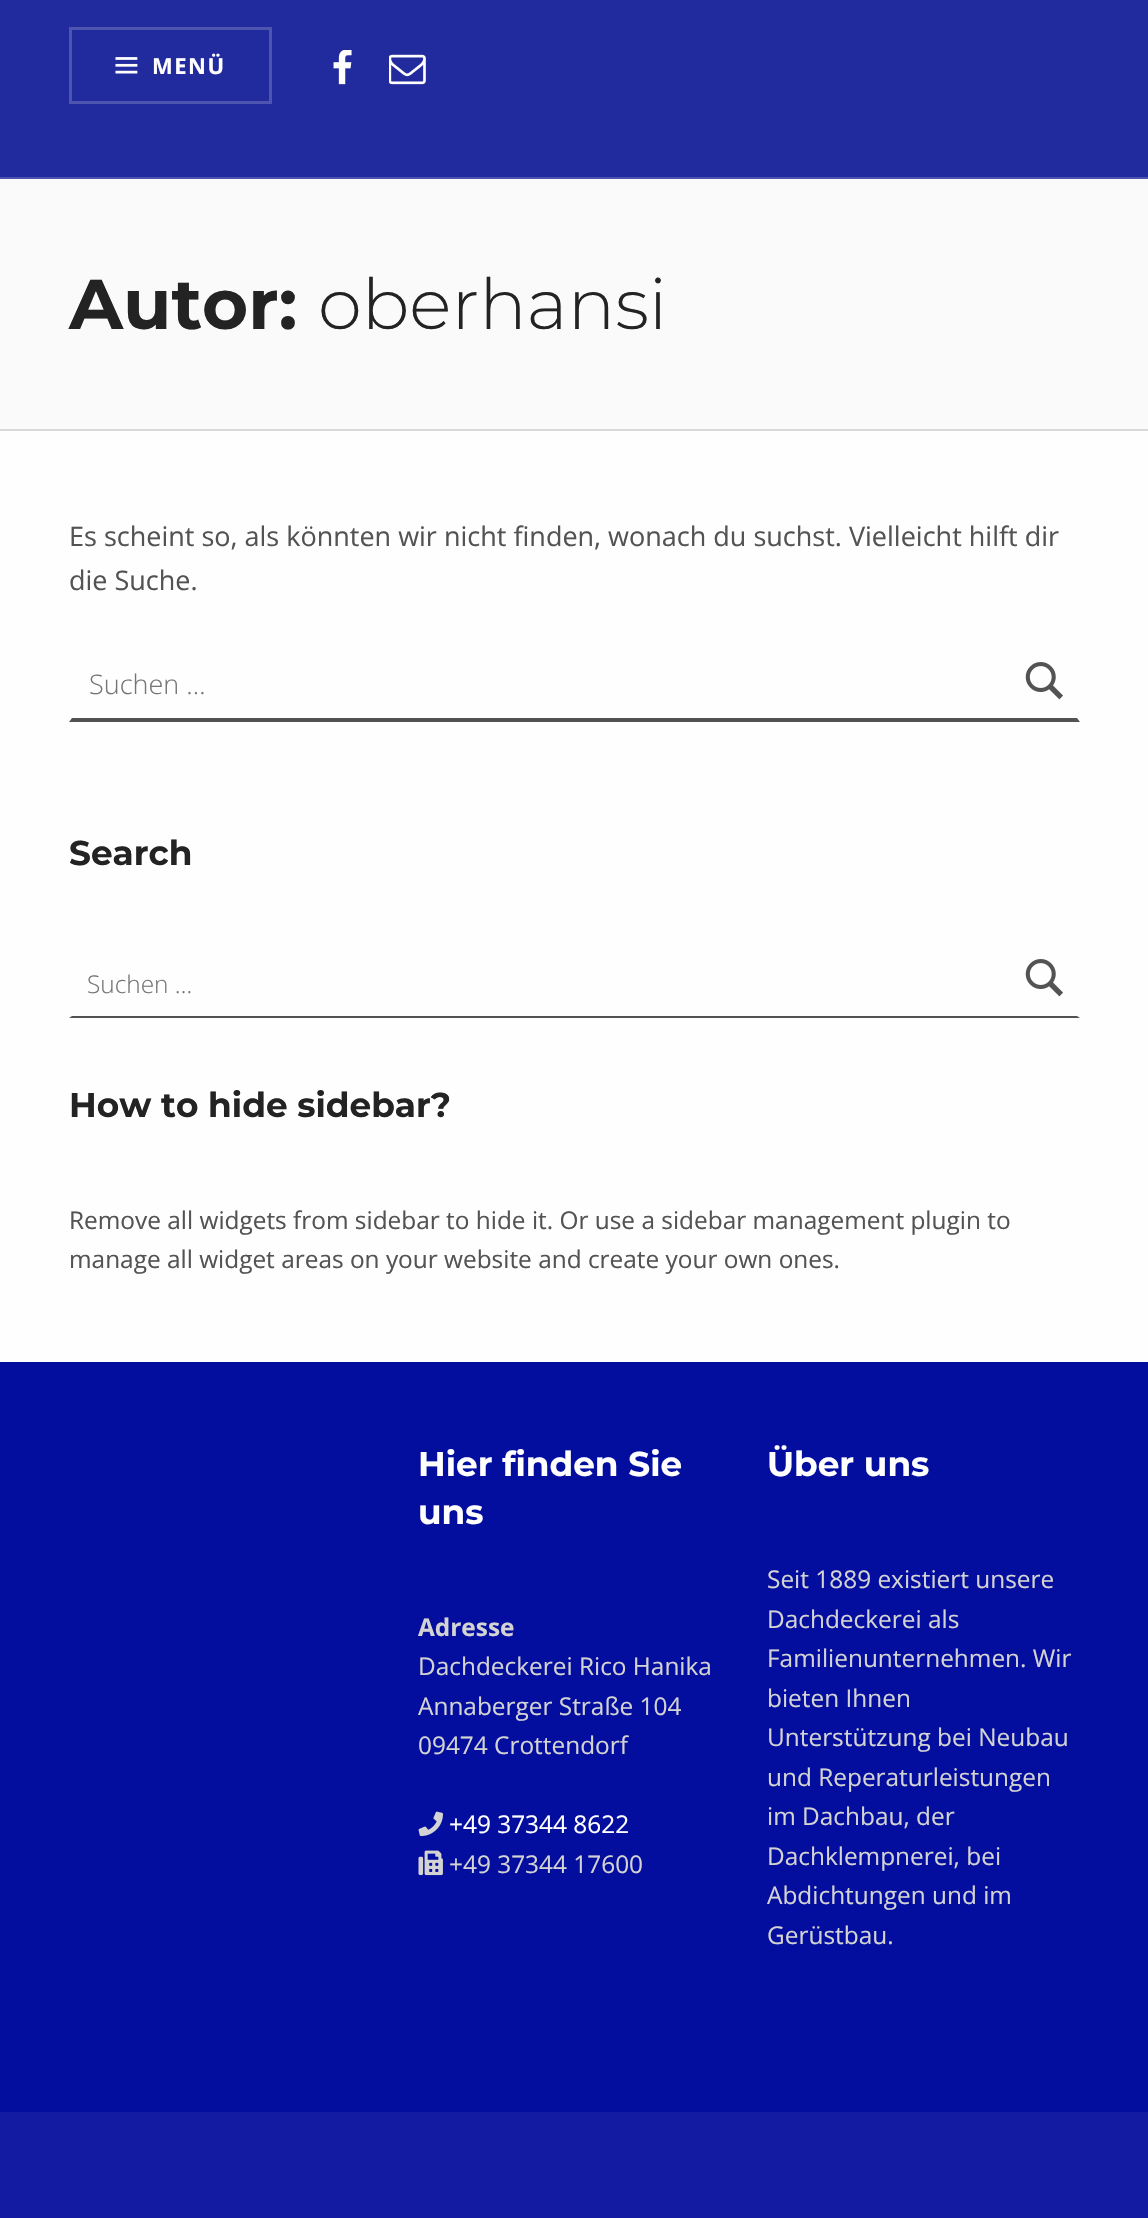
void draw(SkCanvas* canvas) {
	SkPaint paint;
	paint.setAntiAlias(true);
	auto spacedText = [&](const char* s, float x, float y, const SkFont& font, const SkPaint& ink, float letter, float word) {
		std::vector<SkGlyphID> glyphs(font.countText(s, strlen(s), SkTextEncoding::kUTF8));
		std::vector<float> xs(glyphs.size());
		font.textToGlyphs(s, strlen(s), SkTextEncoding::kUTF8, glyphs);
		font.getXPos(glyphs, xs, x);
		float extra = 0;
		for (size_t i = 0; i < glyphs.size(); i++) {
			xs[i] += extra;
			extra += letter + word * (glyphs[i] == font.unicharToGlyph(' '));
		}
		canvas->drawTextBlob(SkTextBlob::MakeFromPosHGlyphs(glyphs, xs, y, font), 0, 0, ink);
	};
	auto svgPath = [&](const char* data, bool evenOdd = false) {
		SkPath result = *SkParsePath::FromSVGString(data);
		if (evenOdd) result.setFillType(SkPathFillType::kEvenOdd);
		return result;
	};
	canvas->clear(0xfffefeff);
	paint.setColor(0xff222b9e);
	canvas->drawRect(SkRect::MakeXYWH(0, 0, 1148, 177), paint);
	paint.setColor(0xff4e55b1);
	canvas->drawRect(SkRect::MakeXYWH(0, 177, 1148, 2), paint);
	paint.setStroke(true);
	paint.setStrokeWidth(3);
	canvas->drawRect(SkRect::MakeXYWH(70.5, 28.5, 200, 74), paint);
	canvas->drawImageRect(SkImages::DeferredFromEncodedData(SkData::MakeFromFileName("img1.png")), SkRect::MakeXYWH(115, 57, 23, 17), SkSamplingOptions());
	SkFont f1(fontMgr->matchFamilyStyle("Open Sans", SkFontStyle::Bold()), 22);
	f1.setSubpixel(true);
	paint.setStroke(false);
	paint.setColor(0xffffffff);
	spacedText("MENÜ", 152, 74, f1, paint, 1.5, 0);
	canvas->drawImageRect(SkImages::DeferredFromEncodedData(SkData::MakeFromFileName("img2.png")), SkRect::MakeXYWH(333, 50, 19, 35), SkSamplingOptions());
	canvas->drawImageRect(SkImages::DeferredFromEncodedData(SkData::MakeFromFileName("img3.png")), SkRect::MakeXYWH(389, 54, 37, 31), SkSamplingOptions());
	paint.setColor(0xfffafafb);
	canvas->drawRect(SkRect::MakeXYWH(0, 179, 1148, 250), paint);
	paint.setColor(0xffd9d9da);
	canvas->drawRect(SkRect::MakeXYWH(0, 429, 1148, 2), paint);
	SkFont f2(fontMgr->matchFamilyStyle("Montserrat", SkFontStyle::Bold()), 70.5);
	f2.setSubpixel(true);
	paint.setColor(0xff232324);
	canvas->drawString("Autor:", 69, 329, f2, paint);
	SkFont f3(fontMgr->matchFamilyStyle("Montserrat", SkFontStyle(300, SkFontStyle::kNormal_Width, SkFontStyle::kUpright_Slant)), 70.5);
	f3.setSubpixel(true);
	canvas->drawString("oberhansi", 318, 329, f3, paint);
	SkFont f4(fontMgr->matchFamilyStyle("Open Sans", SkFontStyle::Normal()), 27);
	f4.setSubpixel(true);
	paint.setColor(0xff535354);
	canvas->drawString("Es scheint so, als könnten wir nicht finden, wonach du suchst. Vielleicht hilft dir", 69, 546, f4, paint);
	canvas->drawString("die Suche.", 69, 590, f4, paint);
	canvas->drawPath(svgPath("M1080 722H69L72 718H1077Z"), paint);
	SkFont f5(fontMgr->matchFamilyStyle("Open Sans", SkFontStyle(300, SkFontStyle::kNormal_Width, SkFontStyle::kUpright_Slant)), 27);
	f5.setSubpixel(true);
	paint.setColor(0xff757576);
	canvas->drawString("Suchen …", 89, 694, f5, paint);
	canvas->drawImageRect(SkImages::DeferredFromEncodedData(SkData::MakeFromFileName("img4.png")), SkRect::MakeXYWH(1025, 662, 38, 38), SkSamplingOptions());
	SkFont f6(fontMgr->matchFamilyStyle("Montserrat", SkFontStyle::Bold()), 34.3);
	f6.setSubpixel(true);
	paint.setColor(0xff232324);
	canvas->drawString("Search", 69, 865, f6, paint);
	paint.setColor(0xff535354);
	canvas->drawPath(svgPath("M1080 1018H69L72 1016H1077Z"), paint);
	SkFont f7(fontMgr->matchFamilyStyle("Open Sans", SkFontStyle(300, SkFontStyle::kNormal_Width, SkFontStyle::kUpright_Slant)), 24.4);
	f7.setSubpixel(true);
	paint.setColor(0xff757576);
	canvas->drawString("Suchen …", 87, 993, f7, paint);
	canvas->drawImageRect(SkImages::DeferredFromEncodedData(SkData::MakeFromFileName("img4.png")), SkRect::MakeXYWH(1025, 959, 38, 38), SkSamplingOptions());
	paint.setColor(0xff232324);
	canvas->drawString("How to hide sidebar?", 69, 1117, f6, paint);
	SkFont f8(fontMgr->matchFamilyStyle("Open Sans", SkFontStyle::Normal()), 24.4);
	f8.setSubpixel(true);
	paint.setColor(0xff535354);
	canvas->drawString("Remove all widgets from sidebar to hide it. Or use a sidebar management plugin to", 69, 1229, f8, paint);
	canvas->drawString("manage all widget areas on your website and create your own ones.", 69, 1268, f8, paint);
	paint.setColor(0xff030d9e);
	canvas->drawRect(SkRect::MakeXYWH(0, 1362, 1148, 750), paint);
	paint.setColor(0xffffffff);
	canvas->drawString("Hier finden Sie", 418, 1476, f6, paint);
	canvas->drawString("uns", 418, 1524, f6, paint);
	SkFont f9(fontMgr->matchFamilyStyle("Open Sans", SkFontStyle::Bold()), 24.4);
	f9.setSubpixel(true);
	paint.setColor(0xffd3d3d4);
	canvas->drawString("Adresse", 418, 1636, f9, paint);
	canvas->drawString("Dachdeckerei Rico Hanika", 418, 1675, f8, paint);
	canvas->drawString("Annaberger Straße 104", 418, 1715, f8, paint);
	canvas->drawString("09474 Crottendorf", 418, 1754, f8, paint);
	canvas->drawImageRect(SkImages::DeferredFromEncodedData(SkData::MakeFromFileName("img5.png")), SkRect::MakeXYWH(418, 1811, 25, 25), SkSamplingOptions());
	paint.setColor(0xffffffff);
	canvas->drawString("+49 37344 8622", 449, 1833, f8, paint);
	canvas->drawImageRect(SkImages::DeferredFromEncodedData(SkData::MakeFromFileName("img6.png")), SkRect::MakeXYWH(418, 1850, 25, 26), SkSamplingOptions());
	paint.setColor(0xffd3d3d4);
	canvas->drawString("+49 37344 17600", 449, 1873, f8, paint);
	paint.setColor(0xffffffff);
	canvas->drawString("Über uns", 767, 1476, f6, paint);
	paint.setColor(0xffd3d3d4);
	canvas->drawString("Seit 1889 existiert unsere", 767, 1588, f8, paint);
	canvas->drawString("Dachdeckerei als", 767, 1628, f8, paint);
	canvas->drawString("Familienunternehmen. Wir", 767, 1667, f8, paint);
	canvas->drawString("bieten Ihnen", 767, 1707, f8, paint);
	canvas->drawString("Unterstützung bei Neubau", 767, 1746, f8, paint);
	canvas->drawString("und Reperaturleistungen", 767, 1786, f8, paint);
	canvas->drawString("im Dachbau, der", 767, 1825, f8, paint);
	canvas->drawString("Dachklempnerei, bei", 767, 1865, f8, paint);
	canvas->drawString("Abdichtungen und im", 767, 1904, f8, paint);
	canvas->drawString("Gerüstbau.", 767, 1944, f8, paint);
	paint.setColor(0xff121ba2);
	canvas->drawRect(SkRect::MakeXYWH(0, 2112, 1148, 106), paint);
}
